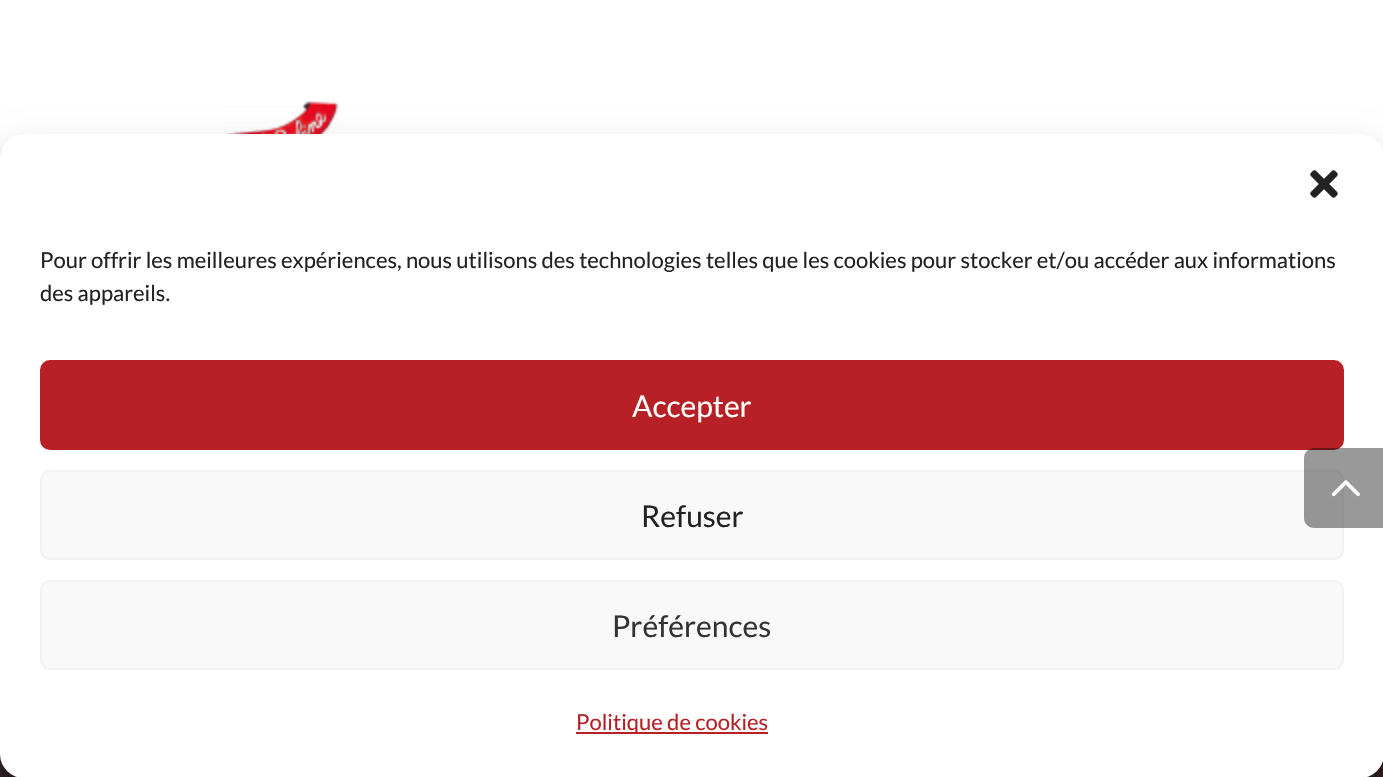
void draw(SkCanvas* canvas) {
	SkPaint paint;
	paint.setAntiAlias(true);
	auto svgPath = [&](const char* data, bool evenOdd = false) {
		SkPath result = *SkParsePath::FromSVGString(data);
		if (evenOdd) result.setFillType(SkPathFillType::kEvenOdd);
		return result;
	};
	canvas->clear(0xff342327);
	paint.setColor(0xffffffff);
	canvas->drawRect(SkRect::MakeXYWH(0, 0, 1383, 158), paint);
	canvas->drawImageRect(SkImages::DeferredFromEncodedData(SkData::MakeFromFileName("img1.png")), SkRect::MakeXYWH(225, 101, 113, 33), SkSamplingOptions());
	paint.setColor(0x3b000000);
	paint.setMaskFilter(SkMaskFilter::MakeBlur(kNormal_SkBlurStyle, 6));
	canvas->drawRoundRect(SkRect::MakeXYWH(0, 146, 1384, 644), 24, 24, paint);
	paint.setMaskFilter(nullptr);
	paint.setColor(0x30000000);
	paint.setMaskFilter(SkMaskFilter::MakeBlur(kNormal_SkBlurStyle, 20));
	canvas->drawRoundRect(SkRect::MakeXYWH(0, 154, 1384, 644), 24, 24, paint);
	paint.setMaskFilter(nullptr);
	paint.setColor(0xffffffff);
	canvas->drawRoundRect(SkRect::MakeXYWH(0, 134, 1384, 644), 24, 24, paint);
	canvas->drawImageRect(SkImages::DeferredFromEncodedData(SkData::MakeFromFileName("img2.png")), SkRect::MakeXYWH(1310, 170, 28, 28), SkSamplingOptions());
	SkFont f1(fontMgr->matchFamilyStyle("Lato", SkFontStyle::Normal()), 22);
	f1.setSubpixel(true);
	paint.setColor(0xff222222);
	canvas->drawString("Pour offrir les meilleures expériences, nous utilisons des technologies telles que les cookies pour stocker et/ou accéder aux informations", 40, 268, f1, paint);
	canvas->drawString("des appareils.", 40, 301, f1, paint);
	paint.setColor(0xffb72025);
	canvas->drawRoundRect(SkRect::MakeXYWH(41, 361, 1302, 88), 9, 9, paint);
	paint.setStroke(true);
	paint.setStrokeWidth(2);
	canvas->drawRoundRect(SkRect::MakeXYWH(41, 361, 1302, 88), 9, 9, paint);
	SkFont f2(fontMgr->matchFamilyStyle("Lato", SkFontStyle::Normal()), 30);
	f2.setSubpixel(true);
	paint.setStroke(false);
	paint.setColor(0xffffffff);
	canvas->drawString("Accepter", 632, 417, f2, paint);
	paint.setColor(0xfff9f9f9);
	canvas->drawRoundRect(SkRect::MakeXYWH(41, 471, 1302, 88), 9, 9, paint);
	paint.setStroke(true);
	paint.setColor(0xfff2f2f2);
	canvas->drawRoundRect(SkRect::MakeXYWH(41, 471, 1302, 88), 9, 9, paint);
	paint.setStroke(false);
	paint.setColor(0xff222222);
	canvas->drawString("Refuser", 641, 527, f2, paint);
	paint.setColor(0xfff9f9f9);
	canvas->drawRoundRect(SkRect::MakeXYWH(41, 581, 1302, 88), 9, 9, paint);
	paint.setStroke(true);
	paint.setColor(0xfff2f2f2);
	canvas->drawRoundRect(SkRect::MakeXYWH(41, 581, 1302, 88), 9, 9, paint);
	paint.setStroke(false);
	paint.setColor(0xff333333);
	canvas->drawString("Préférences", 612, 637, f2, paint);
	paint.setColor(0xffb72025);
	canvas->drawRect(SkRect::MakeXYWH(576, 732, 192, 2), paint);
	canvas->drawString("Politique de cookies", 576, 730, f1, paint);
	paint.setColor(0x66000000);
	canvas->drawPath(svgPath("M1314 448H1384V528H1314C1308.5 528 1304 523.5 1304 518V458C1304 452.5 1308.5 448 1314 448Z"), paint);
	canvas->drawImageRect(SkImages::DeferredFromEncodedData(SkData::MakeFromFileName("img3.png")), SkRect::MakeXYWH(1331, 480, 29, 17), SkSamplingOptions());
}
